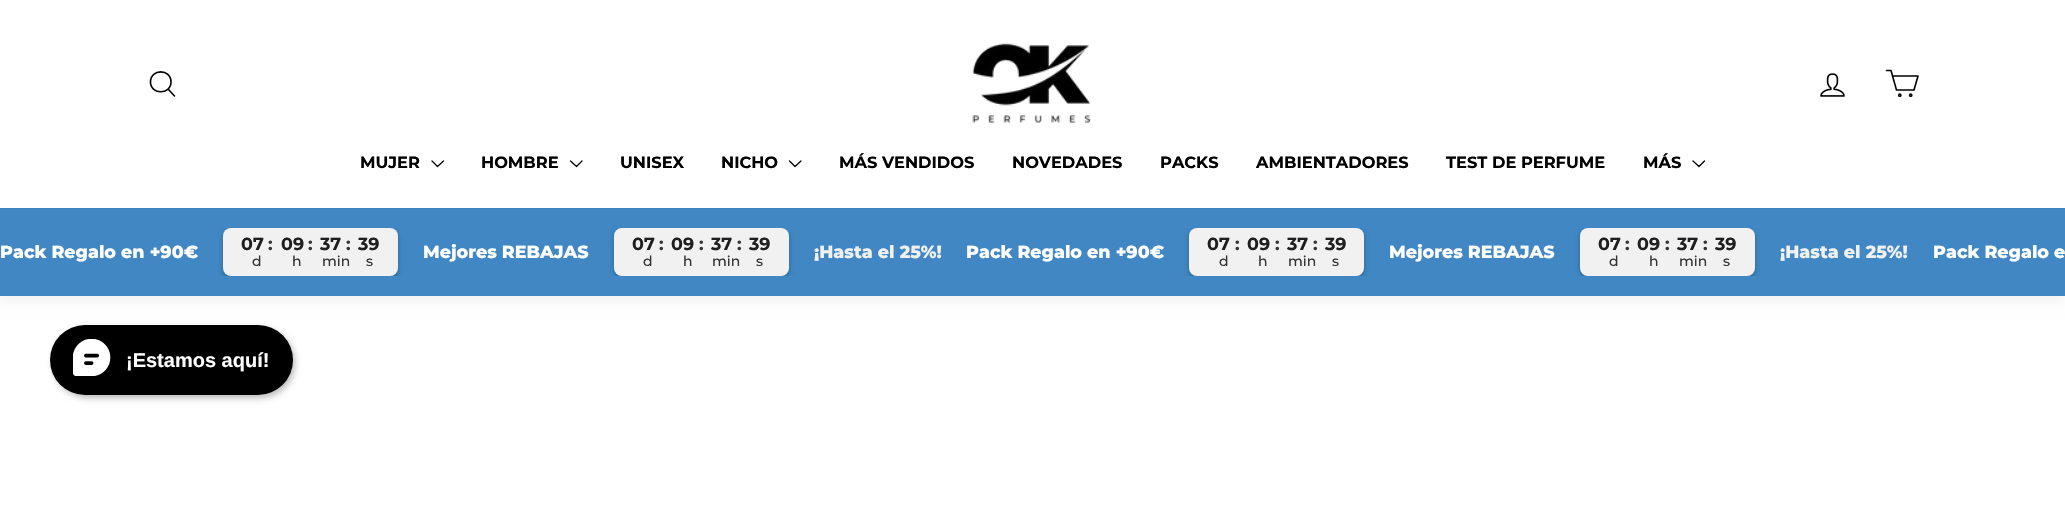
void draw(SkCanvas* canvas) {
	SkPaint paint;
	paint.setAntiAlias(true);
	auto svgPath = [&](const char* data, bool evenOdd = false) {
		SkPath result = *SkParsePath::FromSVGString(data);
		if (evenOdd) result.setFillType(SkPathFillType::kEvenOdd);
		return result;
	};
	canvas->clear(0xffffffff);
	paint.setColor(0x0d000000);
	paint.setMaskFilter(SkMaskFilter::MakeBlur(kNormal_SkBlurStyle, 6));
	canvas->drawRect(SkRect::MakeXYWH(0, 213, 2065, 88), paint);
	paint.setMaskFilter(nullptr);
	paint.setColor(0xff4087c3);
	canvas->drawRect(SkRect::MakeXYWH(0, 208, 2065, 88), paint);
	paint.setColor(0x33000000);
	paint.setMaskFilter(SkMaskFilter::MakeBlur(kNormal_SkBlurStyle, 0.5));
	canvas->drawRect(SkRect::MakeXYWH(0, 0, 2065, 208), paint);
	paint.setMaskFilter(nullptr);
	paint.setColor(0xffffffff);
	canvas->drawRect(SkRect::MakeXYWH(0, 0, 2065, 208), paint);
	paint.setStroke(true);
	paint.setStrokeWidth(1.6);
	paint.setStrokeCap(SkPaint::kRound_Cap);
	paint.setStrokeJoin(SkPaint::kRound_Join);
	paint.setColor(0xff000000);
	canvas->drawPath(svgPath("M171 82C171 95 150.5 95 150.5 82C150.5 68.5 171 68.5 171 82ZM174.5 96L168 89"), paint);
	canvas->drawImageRect(SkImages::DeferredFromEncodedData(SkData::MakeFromFileName("img1.png")), SkRect::MakeXYWH(972, 43, 119, 80), SkSamplingOptions());
	canvas->drawImageRect(SkImages::DeferredFromEncodedData(SkData::MakeFromFileName("img2.png")), SkRect::MakeXYWH(1820, 73, 25, 24), SkSamplingOptions());
	canvas->drawPath(svgPath("M1892.5 76H1918L1914 90H1896.5L1891 70.5H1886.5"), paint);
	paint.setStrokeCap(SkPaint::kButt_Cap);
	paint.setStrokeJoin(SkPaint::kMiter_Join);
	canvas->drawCircle(1899.8, 95.2, 1.1, paint);
	canvas->drawCircle(1910.7, 95.2, 1.1, paint);
	SkFont f1(fontMgr->matchFamilyStyle("Montserrat", SkFontStyle::Bold()), 16.25);
	f1.setSubpixel(true);
	paint.setStroke(false);
	canvas->drawString("MUJER", 360, 168, f1, paint);
	paint.setStroke(true);
	paint.setStrokeWidth(1.3);
	paint.setStrokeCap(SkPaint::kRound_Cap);
	paint.setStrokeJoin(SkPaint::kRound_Join);
	canvas->drawPath(svgPath("M432 161L437.5 166.5L443.5 161"), paint);
	paint.setStroke(false);
	canvas->drawString("HOMBRE", 481, 168, f1, paint);
	paint.setStroke(true);
	canvas->drawPath(svgPath("M570.5 161L576.5 166.5L582 161"), paint);
	paint.setStroke(false);
	canvas->drawString("UNISEX", 620, 168, f1, paint);
	canvas->drawString("NICHO", 721, 168, f1, paint);
	paint.setStroke(true);
	canvas->drawPath(svgPath("M789.5 161L795 166.5L801 161"), paint);
	paint.setStroke(false);
	canvas->drawString("MÁS VENDIDOS", 839, 168, f1, paint);
	canvas->drawString("NOVEDADES", 1012, 168, f1, paint);
	canvas->drawString("PACKS", 1160, 168, f1, paint);
	canvas->drawString("AMBIENTADORES", 1256, 168, f1, paint);
	canvas->drawString("TEST DE PERFUME", 1446, 168, f1, paint);
	canvas->drawString("MÁS", 1643, 168, f1, paint);
	paint.setStroke(true);
	canvas->drawPath(svgPath("M1693 161L1699 166.5L1704.5 161"), paint);
	SkFont f2(fontMgr->matchFamilyStyle("Montserrat", SkFontStyle(800, SkFontStyle::kNormal_Width, SkFontStyle::kUpright_Slant)), 17.5);
	f2.setSubpixel(true);
	paint.setStroke(false);
	paint.setColor(0xffffffff);
	canvas->drawString("Pack Regalo en +90€", 0, 258, f2, paint);
	canvas->save();
	canvas->clipRect(SkRect::MakeXYWH(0, 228, 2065, 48));
	paint.setColor(0x40000000);
	paint.setMaskFilter(SkMaskFilter::MakeBlur(kNormal_SkBlurStyle, 2.5));
	canvas->drawRoundRect(SkRect::MakeXYWH(223, 230, 175, 49), 8, 8, paint);
	paint.setMaskFilter(nullptr);
	canvas->restore();
	paint.setColor(0xfff1f1f1);
	canvas->drawRoundRect(SkRect::MakeXYWH(223, 228, 175, 48), 8, 8, paint);
	SkFont f3(fontMgr->matchFamilyStyle("Montserrat", SkFontStyle::Bold()), 17.5);
	f3.setSubpixel(true);
	paint.setColor(0xff1f1f1f);
	canvas->drawString("07", 241, 250, f3, paint);
	paint.setColor(0xff343434);
	canvas->drawString(":", 268, 250, f3, paint);
	SkFont f4(fontMgr->matchFamilyStyle("Montserrat", SkFontStyle(500, SkFontStyle::kNormal_Width, SkFontStyle::kUpright_Slant)), 14);
	f4.setSubpixel(true);
	canvas->drawString("d", 252, 266, f4, paint);
	paint.setColor(0xff1f1f1f);
	canvas->drawString("09", 281, 250, f3, paint);
	paint.setColor(0xff343434);
	canvas->drawString(":", 308, 250, f3, paint);
	canvas->drawString("h", 292, 266, f4, paint);
	paint.setColor(0xff1f1f1f);
	canvas->drawString("37", 320, 250, f3, paint);
	paint.setColor(0xff343434);
	canvas->drawString(":", 346, 250, f3, paint);
	canvas->drawString("min", 322, 266, f4, paint);
	paint.setColor(0xff1f1f1f);
	canvas->drawString("39", 358, 250, f3, paint);
	paint.setColor(0xff343434);
	canvas->drawString("s", 366, 266, f4, paint);
	paint.setColor(0xffffffff);
	canvas->drawString("Mejores REBAJAS", 423, 258, f2, paint);
	canvas->save();
	canvas->clipRect(SkRect::MakeXYWH(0, 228, 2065, 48));
	paint.setColor(0x40000000);
	paint.setMaskFilter(SkMaskFilter::MakeBlur(kNormal_SkBlurStyle, 2.5));
	canvas->drawRoundRect(SkRect::MakeXYWH(614, 230, 175, 49), 8, 8, paint);
	paint.setMaskFilter(nullptr);
	canvas->restore();
	paint.setColor(0xfff1f1f1);
	canvas->drawRoundRect(SkRect::MakeXYWH(614, 228, 175, 48), 8, 8, paint);
	paint.setColor(0xff1f1f1f);
	canvas->drawString("07", 632, 250, f3, paint);
	paint.setColor(0xff343434);
	canvas->drawString(":", 659, 250, f3, paint);
	canvas->drawString("d", 643, 266, f4, paint);
	paint.setColor(0xff1f1f1f);
	canvas->drawString("09", 671, 250, f3, paint);
	paint.setColor(0xff343434);
	canvas->drawString(":", 699, 250, f3, paint);
	canvas->drawString("h", 683, 266, f4, paint);
	paint.setColor(0xff1f1f1f);
	canvas->drawString("37", 711, 250, f3, paint);
	paint.setColor(0xff343434);
	canvas->drawString(":", 737, 250, f3, paint);
	canvas->drawString("min", 712, 266, f4, paint);
	paint.setColor(0xff1f1f1f);
	canvas->drawString("39", 749, 250, f3, paint);
	paint.setColor(0xff343434);
	canvas->drawString("s", 756, 266, f4, paint);
	paint.setColor(0xfff1f1f1);
	canvas->drawString("¡Hasta el 25%!", 814, 258, f2, paint);
	paint.setColor(0xffffffff);
	canvas->drawString("Pack Regalo en +90€", 966, 258, f2, paint);
	canvas->save();
	canvas->clipRect(SkRect::MakeXYWH(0, 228, 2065, 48));
	paint.setColor(0x40000000);
	paint.setMaskFilter(SkMaskFilter::MakeBlur(kNormal_SkBlurStyle, 2.5));
	canvas->drawRoundRect(SkRect::MakeXYWH(1189, 230, 175, 49), 8, 8, paint);
	paint.setMaskFilter(nullptr);
	canvas->restore();
	paint.setColor(0xfff1f1f1);
	canvas->drawRoundRect(SkRect::MakeXYWH(1189, 228, 175, 48), 8, 8, paint);
	paint.setColor(0xff1f1f1f);
	canvas->drawString("07", 1207, 250, f3, paint);
	paint.setColor(0xff343434);
	canvas->drawString(":", 1235, 250, f3, paint);
	canvas->drawString("d", 1219, 266, f4, paint);
	paint.setColor(0xff1f1f1f);
	canvas->drawString("09", 1247, 250, f3, paint);
	paint.setColor(0xff343434);
	canvas->drawString(":", 1275, 250, f3, paint);
	canvas->drawString("h", 1258, 266, f4, paint);
	paint.setColor(0xff1f1f1f);
	canvas->drawString("37", 1287, 250, f3, paint);
	paint.setColor(0xff343434);
	canvas->drawString(":", 1313, 250, f3, paint);
	canvas->drawString("min", 1288, 266, f4, paint);
	paint.setColor(0xff1f1f1f);
	canvas->drawString("39", 1325, 250, f3, paint);
	paint.setColor(0xff343434);
	canvas->drawString("s", 1332, 266, f4, paint);
	paint.setColor(0xffffffff);
	canvas->drawString("Mejores REBAJAS", 1389, 258, f2, paint);
	canvas->save();
	canvas->clipRect(SkRect::MakeXYWH(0, 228, 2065, 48));
	paint.setColor(0x40000000);
	paint.setMaskFilter(SkMaskFilter::MakeBlur(kNormal_SkBlurStyle, 2.5));
	canvas->drawRoundRect(SkRect::MakeXYWH(1580, 230, 175, 49), 8, 8, paint);
	paint.setMaskFilter(nullptr);
	canvas->restore();
	paint.setColor(0xfff1f1f1);
	canvas->drawRoundRect(SkRect::MakeXYWH(1580, 228, 175, 48), 8, 8, paint);
	paint.setColor(0xff1f1f1f);
	canvas->drawString("07", 1598, 250, f3, paint);
	paint.setColor(0xff343434);
	canvas->drawString(":", 1625, 250, f3, paint);
	canvas->drawString("d", 1609, 266, f4, paint);
	paint.setColor(0xff1f1f1f);
	canvas->drawString("09", 1637, 250, f3, paint);
	paint.setColor(0xff343434);
	canvas->drawString(":", 1665, 250, f3, paint);
	canvas->drawString("h", 1649, 266, f4, paint);
	paint.setColor(0xff1f1f1f);
	canvas->drawString("37", 1677, 250, f3, paint);
	paint.setColor(0xff343434);
	canvas->drawString(":", 1703, 250, f3, paint);
	canvas->drawString("min", 1679, 266, f4, paint);
	paint.setColor(0xff1f1f1f);
	canvas->drawString("39", 1715, 250, f3, paint);
	paint.setColor(0xff343434);
	canvas->drawString("s", 1723, 266, f4, paint);
	paint.setColor(0xfff1f1f1);
	canvas->drawString("¡Hasta el 25%!", 1780, 258, f2, paint);
	paint.setColor(0xffffffff);
	canvas->drawString("Pack Regalo e", 1933, 258, f2, paint);
	paint.setColor(0x45000000);
	paint.setMaskFilter(SkMaskFilter::MakeBlur(kNormal_SkBlurStyle, 3));
	canvas->drawRoundRect(SkRect::MakeXYWH(53, 328, 242, 70), 35, 35, paint);
	paint.setMaskFilter(nullptr);
	paint.setColor(0xff000000);
	canvas->drawRoundRect(SkRect::MakeXYWH(50, 325, 243, 70), 35, 35, paint);
	canvas->drawImageRect(SkImages::DeferredFromEncodedData(SkData::MakeFromFileName("img3.png")), SkRect::MakeXYWH(73, 339, 38, 37), SkSamplingOptions());
	SkFont f5(fontMgr->matchFamilyStyle("Liberation Sans", SkFontStyle::Bold()), 20);
	f5.setSubpixel(true);
	paint.setColor(0xffffffff);
	canvas->drawString("¡Estamos aquí!", 126, 367, f5, paint);
}
